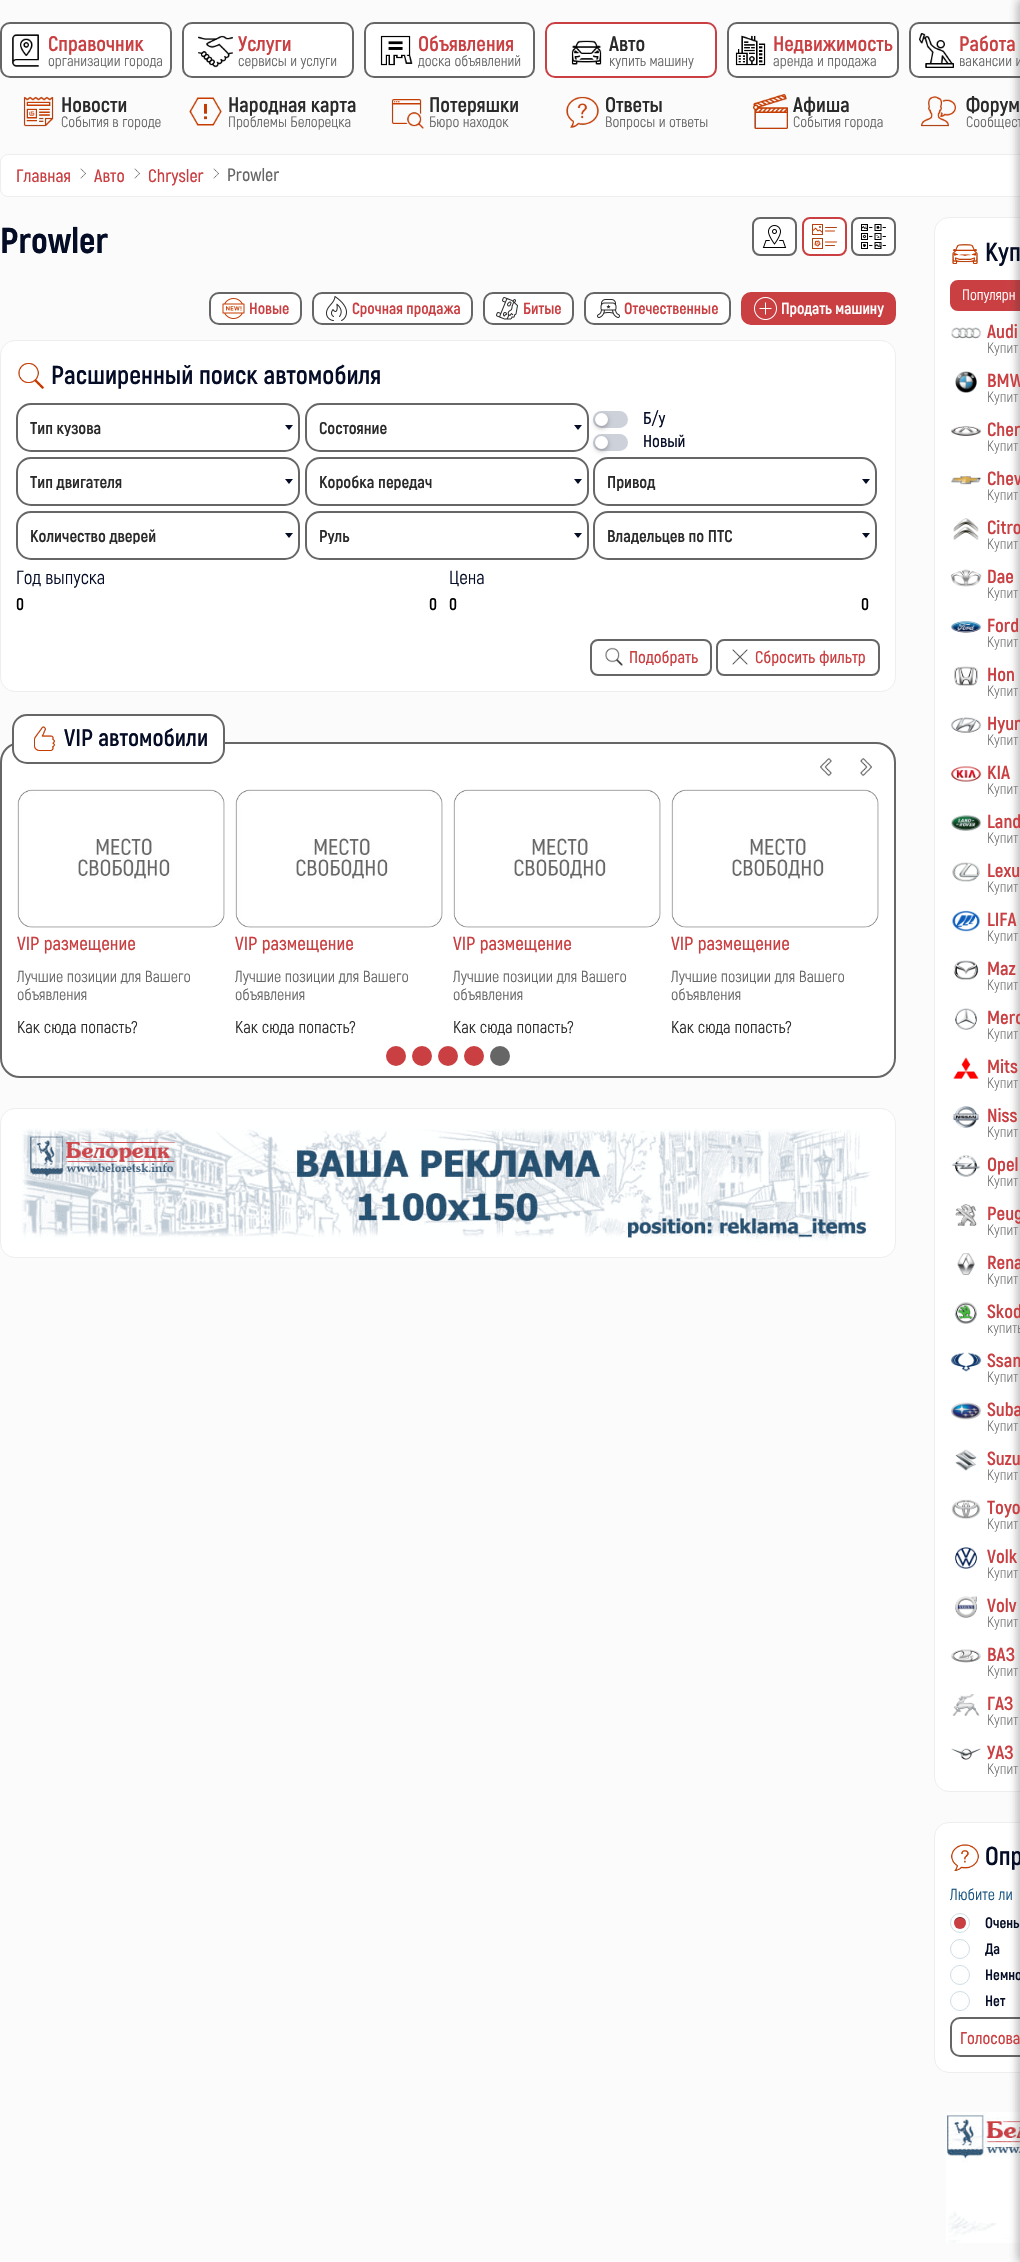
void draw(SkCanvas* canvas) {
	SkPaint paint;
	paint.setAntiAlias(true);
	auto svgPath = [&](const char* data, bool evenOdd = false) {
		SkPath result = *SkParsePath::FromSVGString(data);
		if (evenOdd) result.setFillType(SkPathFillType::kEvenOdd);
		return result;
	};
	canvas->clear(0xfffbfbfb);
	paint.setColor(0xffffffff);
	canvas->drawRoundRect(SkRect::MakeXYWH(910, 23, 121, 54), 9, 9, paint);
	paint.setStroke(true);
	paint.setStrokeWidth(2);
	paint.setColor(0xff666666);
	canvas->drawRoundRect(SkRect::MakeXYWH(910, 23, 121, 54), 9, 9, paint);
	paint.setStroke(false);
	paint.setColor(0xffffffff);
	canvas->drawRoundRect(SkRect::MakeXYWH(0.5, 154.5, 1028, 42), 7.5, 7.5, paint);
	paint.setStroke(true);
	paint.setStrokeWidth(1);
	paint.setColor(0xffeeeeee);
	canvas->drawRoundRect(SkRect::MakeXYWH(0.5, 154.5, 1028, 42), 7.5, 7.5, paint);
	paint.setStroke(false);
	paint.setColor(0xffffffff);
	canvas->drawRoundRect(SkRect::MakeXYWH(934.5, 217.5, 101, 1574), 14.5, 14.5, paint);
	paint.setStroke(true);
	paint.setColor(0xffeeeeee);
	canvas->drawRoundRect(SkRect::MakeXYWH(934.5, 217.5, 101, 1574), 14.5, 14.5, paint);
	paint.setStroke(false);
	paint.setColor(0xffc93f42);
	canvas->drawRoundRect(SkRect::MakeXYWH(951, 281, 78, 29), 7, 7, paint);
	paint.setStroke(true);
	paint.setStrokeWidth(2);
	canvas->drawRoundRect(SkRect::MakeXYWH(951, 281, 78, 29), 7, 7, paint);
	paint.setStroke(false);
	paint.setColor(0xffffffff);
	canvas->drawRoundRect(SkRect::MakeXYWH(934.5, 1822.5, 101, 250), 14.5, 14.5, paint);
	paint.setStroke(true);
	paint.setStrokeWidth(1);
	paint.setColor(0xffeeeeee);
	canvas->drawRoundRect(SkRect::MakeXYWH(934.5, 1822.5, 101, 250), 14.5, 14.5, paint);
	paint.setStrokeWidth(2);
	paint.setColor(0xff666666);
	canvas->drawRoundRect(SkRect::MakeXYWH(951, 2018, 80, 38), 9, 9, paint);
	canvas->drawImageRect(SkImages::DeferredFromEncodedData(SkData::MakeFromFileName("img66.png")), SkRect::MakeXYWH(946, 2112, 74, 131), SkSamplingOptions());
	paint.setStroke(false);
	paint.setColor(0x33323232);
	paint.setMaskFilter(SkMaskFilter::MakeBlur(kNormal_SkBlurStyle, 5));
	canvas->drawRect(SkRect::MakeXYWH(1018, 0, 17, 2262), paint);
	paint.setMaskFilter(nullptr);
	paint.setMaskFilter(SkMaskFilter::MakeBlur(kNormal_SkBlurStyle, 5));
	canvas->drawRect(SkRect::MakeXYWH(1018, 0, 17, 2262), paint);
	paint.setMaskFilter(nullptr);
	paint.setColor(0xffffffff);
	canvas->drawRoundRect(SkRect::MakeXYWH(1, 23, 170, 54), 9, 9, paint);
	paint.setStroke(true);
	paint.setColor(0xff666666);
	canvas->drawRoundRect(SkRect::MakeXYWH(1, 23, 170, 54), 9, 9, paint);
	canvas->drawImageRect(SkImages::DeferredFromEncodedData(SkData::MakeFromFileName("img1.png")), SkRect::MakeXYWH(12, 34, 27, 33), SkSamplingOptions());
	SkFont f1(fontMgr->matchFamilyStyle("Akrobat", SkFontStyle::Bold()), 21);
	f1.setSubpixel(true);
	paint.setStroke(false);
	paint.setColor(0xffc93f42);
	canvas->drawString("Справочник", 48, 51, f1, paint);
	SkFont f2(fontMgr->matchFamilyStyle("Akrobat", SkFontStyle::Normal()), 15);
	f2.setSubpixel(true);
	paint.setColor(0xff666666);
	canvas->drawString("организации города", 48, 66, f2, paint);
	paint.setColor(0xffffffff);
	canvas->drawRoundRect(SkRect::MakeXYWH(183, 23, 170, 54), 9, 9, paint);
	paint.setStroke(true);
	paint.setColor(0xff666666);
	canvas->drawRoundRect(SkRect::MakeXYWH(183, 23, 170, 54), 9, 9, paint);
	canvas->drawImageRect(SkImages::DeferredFromEncodedData(SkData::MakeFromFileName("img2.png")), SkRect::MakeXYWH(198, 35, 35, 33), SkSamplingOptions());
	paint.setStroke(false);
	paint.setColor(0xffc93f42);
	canvas->drawString("Услуги", 238, 51, f1, paint);
	paint.setColor(0xff666666);
	canvas->drawString("сервисы и услуги", 238, 66, f2, paint);
	paint.setColor(0xffffffff);
	canvas->drawRoundRect(SkRect::MakeXYWH(365, 23, 169, 54), 9, 9, paint);
	paint.setStroke(true);
	paint.setColor(0xff666666);
	canvas->drawRoundRect(SkRect::MakeXYWH(365, 23, 169, 54), 9, 9, paint);
	canvas->drawImageRect(SkImages::DeferredFromEncodedData(SkData::MakeFromFileName("img3.png")), SkRect::MakeXYWH(380, 35, 33, 31), SkSamplingOptions());
	paint.setStroke(false);
	paint.setColor(0xffc93f42);
	canvas->drawString("Объявления", 418, 51, f1, paint);
	paint.setColor(0xff666666);
	canvas->drawString("доска объявлений", 418, 66, f2, paint);
	paint.setColor(0xffffffff);
	canvas->drawRoundRect(SkRect::MakeXYWH(546, 23, 170, 54), 9, 9, paint);
	paint.setStroke(true);
	paint.setColor(0xffc93f42);
	canvas->drawRoundRect(SkRect::MakeXYWH(546, 23, 170, 54), 9, 9, paint);
	canvas->drawImageRect(SkImages::DeferredFromEncodedData(SkData::MakeFromFileName("img4.png")), SkRect::MakeXYWH(571, 40, 31, 25), SkSamplingOptions());
	paint.setStroke(false);
	paint.setColor(0xff2a2a2a);
	canvas->drawString("Авто", 609, 51, f1, paint);
	paint.setColor(0xff666666);
	canvas->drawString("купить машину", 609, 66, f2, paint);
	paint.setColor(0xffffffff);
	canvas->drawRoundRect(SkRect::MakeXYWH(728, 23, 170, 54), 9, 9, paint);
	paint.setStroke(true);
	paint.setColor(0xff666666);
	canvas->drawRoundRect(SkRect::MakeXYWH(728, 23, 170, 54), 9, 9, paint);
	canvas->drawImageRect(SkImages::DeferredFromEncodedData(SkData::MakeFromFileName("img5.png")), SkRect::MakeXYWH(735, 35, 31, 31), SkSamplingOptions());
	paint.setStroke(false);
	paint.setColor(0xffc93f42);
	canvas->drawString("Недвижимость", 773, 51, f1, paint);
	paint.setColor(0xff666666);
	canvas->drawString("аренда и продажа", 773, 66, f2, paint);
	canvas->drawImageRect(SkImages::DeferredFromEncodedData(SkData::MakeFromFileName("img6.png")), SkRect::MakeXYWH(919, 33, 35, 35), SkSamplingOptions());
	paint.setColor(0xffc93f42);
	canvas->drawString("Работа", 959, 51, f1, paint);
	paint.setColor(0xff666666);
	canvas->drawString("вакансии и", 959, 66, f2, paint);
	canvas->drawImageRect(SkImages::DeferredFromEncodedData(SkData::MakeFromFileName("img7.png")), SkRect::MakeXYWH(23, 96, 31, 31), SkSamplingOptions());
	paint.setColor(0xff2a2a2a);
	canvas->drawString("Новости", 61, 112, f1, paint);
	paint.setColor(0xff666666);
	canvas->drawString("События в городе", 61, 127, f2, paint);
	canvas->drawImageRect(SkImages::DeferredFromEncodedData(SkData::MakeFromFileName("img8.png")), SkRect::MakeXYWH(189, 97, 33, 29), SkSamplingOptions());
	paint.setColor(0xff2a2a2a);
	canvas->drawString("Народная карта", 228, 112, f1, paint);
	paint.setColor(0xff666666);
	canvas->drawString("Проблемы Белорецка", 228, 127, f2, paint);
	canvas->drawImageRect(SkImages::DeferredFromEncodedData(SkData::MakeFromFileName("img9.png")), SkRect::MakeXYWH(391, 99, 33, 30), SkSamplingOptions());
	paint.setColor(0xff2a2a2a);
	canvas->drawString("Потеряшки", 429, 112, f1, paint);
	paint.setColor(0xff666666);
	canvas->drawString("Бюро находок", 429, 127, f2, paint);
	canvas->drawImageRect(SkImages::DeferredFromEncodedData(SkData::MakeFromFileName("img10.png")), SkRect::MakeXYWH(566, 96, 33, 32), SkSamplingOptions());
	paint.setColor(0xff2a2a2a);
	canvas->drawString("Ответы", 605, 112, f1, paint);
	paint.setColor(0xff666666);
	canvas->drawString("Вопросы и ответы", 605, 127, f2, paint);
	canvas->drawImageRect(SkImages::DeferredFromEncodedData(SkData::MakeFromFileName("img11.png")), SkRect::MakeXYWH(753, 94, 35, 35), SkSamplingOptions());
	paint.setColor(0xff2a2a2a);
	canvas->drawString("Афиша", 793, 112, f1, paint);
	paint.setColor(0xff666666);
	canvas->drawString("События города", 793, 127, f2, paint);
	canvas->drawImageRect(SkImages::DeferredFromEncodedData(SkData::MakeFromFileName("img12.png")), SkRect::MakeXYWH(921, 96, 35, 31), SkSamplingOptions());
	paint.setColor(0xff2a2a2a);
	canvas->drawString("Форум", 966, 112, f1, paint);
	paint.setColor(0xff666666);
	canvas->drawString("Сообщест", 966, 127, f2, paint);
	SkFont f3(fontMgr->matchFamilyStyle("Akrobat", SkFontStyle(600, SkFontStyle::kNormal_Width, SkFontStyle::kUpright_Slant)), 18);
	f3.setSubpixel(true);
	paint.setColor(0xffc93f42);
	canvas->drawString("Главная", 16, 182, f3, paint);
	canvas->drawImageRect(SkImages::DeferredFromEncodedData(SkData::MakeFromFileName("img13.png")), SkRect::MakeXYWH(80, 168, 6, 11), SkSamplingOptions());
	canvas->drawString("Авто", 94, 182, f3, paint);
	canvas->drawImageRect(SkImages::DeferredFromEncodedData(SkData::MakeFromFileName("img13.png")), SkRect::MakeXYWH(134, 168, 6, 11), SkSamplingOptions());
	canvas->drawString("Chrysler", 148, 182, f3, paint);
	canvas->drawImageRect(SkImages::DeferredFromEncodedData(SkData::MakeFromFileName("img14.png")), SkRect::MakeXYWH(213, 168, 6, 11), SkSamplingOptions());
	paint.setColor(0xff666666);
	canvas->drawString("Prowler", 227, 181, f3, paint);
	SkFont f4(fontMgr->matchFamilyStyle("Akrobat", SkFontStyle(800, SkFontStyle::kNormal_Width, SkFontStyle::kUpright_Slant)), 36);
	f4.setSubpixel(true);
	paint.setColor(0xff050c26);
	canvas->drawString("Prowler", 0, 253, f4, paint);
	paint.setColor(0xffffffff);
	canvas->drawRoundRect(SkRect::MakeXYWH(753, 218, 43, 37), 7, 7, paint);
	paint.setStroke(true);
	paint.setColor(0xff666666);
	canvas->drawRoundRect(SkRect::MakeXYWH(753, 218, 43, 37), 7, 7, paint);
	canvas->drawImageRect(SkImages::DeferredFromEncodedData(SkData::MakeFromFileName("img15.png")), SkRect::MakeXYWH(762, 225, 25, 23), SkSamplingOptions());
	paint.setStroke(false);
	paint.setColor(0xffffffff);
	canvas->drawRoundRect(SkRect::MakeXYWH(803, 218, 43, 37), 7, 7, paint);
	paint.setStroke(true);
	paint.setColor(0xffc93f42);
	canvas->drawRoundRect(SkRect::MakeXYWH(803, 218, 43, 37), 7, 7, paint);
	canvas->drawImageRect(SkImages::DeferredFromEncodedData(SkData::MakeFromFileName("img16.png")), SkRect::MakeXYWH(812, 224, 25, 25), SkSamplingOptions());
	paint.setStroke(false);
	paint.setColor(0xffffffff);
	canvas->drawRoundRect(SkRect::MakeXYWH(852, 218, 43, 37), 7, 7, paint);
	paint.setStroke(true);
	paint.setColor(0xff666666);
	canvas->drawRoundRect(SkRect::MakeXYWH(852, 218, 43, 37), 7, 7, paint);
	canvas->drawImageRect(SkImages::DeferredFromEncodedData(SkData::MakeFromFileName("img17.png")), SkRect::MakeXYWH(861, 224, 25, 25), SkSamplingOptions());
	paint.setStroke(false);
	paint.setColor(0xffffffff);
	canvas->drawRoundRect(SkRect::MakeXYWH(210, 293, 91, 31), 9, 9, paint);
	paint.setStroke(true);
	paint.setColor(0xff666666);
	canvas->drawRoundRect(SkRect::MakeXYWH(210, 293, 91, 31), 9, 9, paint);
	canvas->drawImageRect(SkImages::DeferredFromEncodedData(SkData::MakeFromFileName("img18.png")), SkRect::MakeXYWH(222, 298, 23, 21), SkSamplingOptions());
	SkFont f5(fontMgr->matchFamilyStyle("Akrobat", SkFontStyle::Bold()), 16);
	f5.setSubpixel(true);
	paint.setStroke(false);
	paint.setColor(0xffc93f42);
	canvas->drawString("Новые", 249, 314, f5, paint);
	paint.setColor(0xffffffff);
	canvas->drawRoundRect(SkRect::MakeXYWH(313, 293, 159, 31), 9, 9, paint);
	paint.setStroke(true);
	paint.setColor(0xff666666);
	canvas->drawRoundRect(SkRect::MakeXYWH(313, 293, 159, 31), 9, 9, paint);
	canvas->drawImageRect(SkImages::DeferredFromEncodedData(SkData::MakeFromFileName("img19.png")), SkRect::MakeXYWH(326, 296, 21, 25), SkSamplingOptions());
	paint.setStroke(false);
	paint.setColor(0xffc93f42);
	canvas->drawString("Срочная продажа", 352, 314, f5, paint);
	paint.setColor(0xffffffff);
	canvas->drawRoundRect(SkRect::MakeXYWH(484, 293, 89, 31), 9, 9, paint);
	paint.setStroke(true);
	paint.setColor(0xff666666);
	canvas->drawRoundRect(SkRect::MakeXYWH(484, 293, 89, 31), 9, 9, paint);
	canvas->drawImageRect(SkImages::DeferredFromEncodedData(SkData::MakeFromFileName("img20.png")), SkRect::MakeXYWH(496, 297, 22, 23), SkSamplingOptions());
	paint.setStroke(false);
	paint.setColor(0xffc93f42);
	canvas->drawString("Битые", 523, 314, f5, paint);
	paint.setColor(0xffffffff);
	canvas->drawRoundRect(SkRect::MakeXYWH(585, 293, 145, 31), 9, 9, paint);
	paint.setStroke(true);
	paint.setColor(0xff666666);
	canvas->drawRoundRect(SkRect::MakeXYWH(585, 293, 145, 31), 9, 9, paint);
	canvas->drawImageRect(SkImages::DeferredFromEncodedData(SkData::MakeFromFileName("img21.png")), SkRect::MakeXYWH(597, 299, 23, 19), SkSamplingOptions());
	paint.setStroke(false);
	paint.setColor(0xffc93f42);
	canvas->drawString("Отечественные", 624, 314, f5, paint);
	canvas->drawRoundRect(SkRect::MakeXYWH(742, 293, 153, 31), 9, 9, paint);
	paint.setStroke(true);
	canvas->drawRoundRect(SkRect::MakeXYWH(742, 293, 153, 31), 9, 9, paint);
	canvas->drawImageRect(SkImages::DeferredFromEncodedData(SkData::MakeFromFileName("img22.png")), SkRect::MakeXYWH(754, 297, 23, 23), SkSamplingOptions());
	paint.setStroke(false);
	paint.setColor(0xffffffff);
	canvas->drawString("Продать машину", 781, 314, f5, paint);
	canvas->drawRoundRect(SkRect::MakeXYWH(0.5, 340.5, 895, 351), 14.5, 14.5, paint);
	paint.setStroke(true);
	paint.setStrokeWidth(1);
	paint.setColor(0xffeeeeee);
	canvas->drawRoundRect(SkRect::MakeXYWH(0.5, 340.5, 895, 351), 14.5, 14.5, paint);
	canvas->drawImageRect(SkImages::DeferredFromEncodedData(SkData::MakeFromFileName("img23.png")), SkRect::MakeXYWH(18, 363, 27, 26), SkSamplingOptions());
	SkFont f6(fontMgr->matchFamilyStyle("Akrobat", SkFontStyle::Bold()), 26);
	f6.setSubpixel(true);
	paint.setStroke(false);
	paint.setColor(0xff050c26);
	canvas->drawString("Расширенный поиск автомобиля", 51, 384, f6, paint);
	paint.setStroke(true);
	paint.setStrokeWidth(2);
	paint.setColor(0xff666666);
	canvas->drawRoundRect(SkRect::MakeXYWH(17, 404, 282, 47), 14, 14, paint);
	canvas->save();
	canvas->clipRect(SkRect::MakeXYWH(30, 419, 256, 17));
	SkFont f7(fontMgr->matchFamilyStyle("Akrobat", SkFontStyle::Bold()), 17);
	f7.setSubpixel(true);
	paint.setStroke(false);
	paint.setColor(0xff2a2a2a);
	canvas->drawString("Тип кузова", 30, 434, f7, paint);
	canvas->restore();
	paint.setColor(0xff050c26);
	canvas->drawPath(svgPath("M285 425H293L289 430Z"), paint);
	paint.setStroke(true);
	paint.setColor(0xff666666);
	canvas->drawRoundRect(SkRect::MakeXYWH(306, 404, 282, 47), 14, 14, paint);
	paint.setStroke(false);
	paint.setColor(0xff2a2a2a);
	canvas->drawString("Состояние", 319, 434, f7, paint);
	paint.setColor(0xff050c26);
	canvas->drawPath(svgPath("M574 425H582L578 430Z"), paint);
	paint.setColor(0xffcdd1da);
	canvas->drawRoundRect(SkRect::MakeXYWH(593, 411, 35, 17), 8.5, 8.5, paint);
	paint.setColor(0x4d000000);
	paint.setMaskFilter(SkMaskFilter::MakeBlur(kNormal_SkBlurStyle, 2.5));
	canvas->drawRoundRect(SkRect::MakeXYWH(595, 415, 13, 13), 6.5, 6.5, paint);
	paint.setMaskFilter(nullptr);
	paint.setColor(0xffffffff);
	canvas->drawCircle(601.5, 419.5, 6.5, paint);
	SkFont f8(fontMgr->matchFamilyStyle("Akrobat", SkFontStyle(600, SkFontStyle::kNormal_Width, SkFontStyle::kUpright_Slant)), 17);
	f8.setSubpixel(true);
	paint.setColor(0xff050c26);
	canvas->drawString("Б/у", 643, 424, f8, paint);
	paint.setColor(0xffcdd1da);
	canvas->drawRoundRect(SkRect::MakeXYWH(593, 434, 35, 17), 8.5, 8.5, paint);
	paint.setColor(0x4d000000);
	paint.setMaskFilter(SkMaskFilter::MakeBlur(kNormal_SkBlurStyle, 2.5));
	canvas->drawRoundRect(SkRect::MakeXYWH(595, 438, 13, 13), 6.5, 6.5, paint);
	paint.setMaskFilter(nullptr);
	paint.setColor(0xffffffff);
	canvas->drawCircle(601.5, 442.5, 6.5, paint);
	paint.setColor(0xff050c26);
	canvas->drawString("Новый", 643, 447, f8, paint);
	paint.setStroke(true);
	paint.setColor(0xff666666);
	canvas->drawRoundRect(SkRect::MakeXYWH(17, 458, 282, 47), 14, 14, paint);
	paint.setStroke(false);
	paint.setColor(0xff2a2a2a);
	canvas->drawString("Тип двигателя", 30, 488, f7, paint);
	paint.setColor(0xff050c26);
	canvas->drawPath(svgPath("M285 479H293L289 484Z"), paint);
	paint.setStroke(true);
	paint.setColor(0xff666666);
	canvas->drawRoundRect(SkRect::MakeXYWH(306, 458, 282, 47), 14, 14, paint);
	canvas->save();
	canvas->clipRect(SkRect::MakeXYWH(319, 473, 256, 17));
	paint.setStroke(false);
	paint.setColor(0xff2a2a2a);
	canvas->drawString("Коробка передач", 319, 488, f7, paint);
	canvas->restore();
	paint.setColor(0xff050c26);
	canvas->drawPath(svgPath("M574 479H582L578 484Z"), paint);
	paint.setStroke(true);
	paint.setColor(0xff666666);
	canvas->drawRoundRect(SkRect::MakeXYWH(594, 458, 282, 47), 14, 14, paint);
	paint.setStroke(false);
	paint.setColor(0xff2a2a2a);
	canvas->drawString("Привод", 607, 488, f7, paint);
	paint.setColor(0xff050c26);
	canvas->drawPath(svgPath("M862 479H870L866 484Z"), paint);
	paint.setStroke(true);
	paint.setColor(0xff666666);
	canvas->drawRoundRect(SkRect::MakeXYWH(17, 512, 282, 47), 14, 14, paint);
	canvas->save();
	canvas->clipRect(SkRect::MakeXYWH(30, 527, 256, 17));
	paint.setStroke(false);
	paint.setColor(0xff2a2a2a);
	canvas->drawString("Количество дверей", 30, 542, f7, paint);
	canvas->restore();
	paint.setColor(0xff050c26);
	canvas->drawPath(svgPath("M285 533H293L289 538Z"), paint);
	paint.setStroke(true);
	paint.setColor(0xff666666);
	canvas->drawRoundRect(SkRect::MakeXYWH(306, 512, 282, 47), 14, 14, paint);
	canvas->save();
	canvas->clipRect(SkRect::MakeXYWH(319, 527, 256, 17));
	paint.setStroke(false);
	paint.setColor(0xff2a2a2a);
	canvas->drawString("Руль", 319, 542, f7, paint);
	canvas->restore();
	paint.setColor(0xff050c26);
	canvas->drawPath(svgPath("M574 533H582L578 538Z"), paint);
	paint.setStroke(true);
	paint.setColor(0xff666666);
	canvas->drawRoundRect(SkRect::MakeXYWH(594, 512, 282, 47), 14, 14, paint);
	paint.setStroke(false);
	paint.setColor(0xff2a2a2a);
	canvas->drawString("Владельцев по ПТС", 607, 542, f7, paint);
	paint.setColor(0xff050c26);
	canvas->drawPath(svgPath("M862 533H870L866 538Z"), paint);
	SkFont f9(fontMgr->matchFamilyStyle("Akrobat", SkFontStyle::Normal()), 19);
	f9.setSubpixel(true);
	canvas->drawString("Год выпуска", 16, 584, f9, paint);
	paint.setColor(0xff000000);
	canvas->drawString("0", 16, 610, f7, paint);
	canvas->drawString("0", 429, 610, f7, paint);
	paint.setColor(0xff050c26);
	canvas->drawString("Цена", 449, 584, f9, paint);
	paint.setColor(0xff000000);
	canvas->drawString("0", 449, 610, f7, paint);
	canvas->drawString("0", 861, 610, f7, paint);
	paint.setStroke(true);
	paint.setColor(0xff666666);
	canvas->drawRoundRect(SkRect::MakeXYWH(591, 640, 120, 35), 7, 7, paint);
	canvas->drawImageRect(SkImages::DeferredFromEncodedData(SkData::MakeFromFileName("img24.png")), SkRect::MakeXYWH(605, 647, 18, 19), SkSamplingOptions());
	paint.setStroke(false);
	paint.setColor(0xffc93f42);
	canvas->drawString("Подобрать", 629, 663, f8, paint);
	paint.setStroke(true);
	paint.setColor(0xff666666);
	canvas->drawRoundRect(SkRect::MakeXYWH(717, 640, 162, 35), 7, 7, paint);
	canvas->drawImageRect(SkImages::DeferredFromEncodedData(SkData::MakeFromFileName("img25.png")), SkRect::MakeXYWH(732, 649, 16, 16), SkSamplingOptions());
	paint.setStroke(false);
	paint.setColor(0xffc93f42);
	canvas->drawString("Сбросить фильтр", 755, 663, f8, paint);
	paint.setColor(0xffffffff);
	canvas->drawRoundRect(SkRect::MakeXYWH(1, 743, 894, 334), 19, 19, paint);
	paint.setStroke(true);
	paint.setColor(0xff666666);
	canvas->drawRoundRect(SkRect::MakeXYWH(1, 743, 894, 334), 19, 19, paint);
	paint.setStroke(false);
	paint.setColor(0xffffffff);
	canvas->drawRoundRect(SkRect::MakeXYWH(13, 715, 211, 48), 14, 14, paint);
	paint.setStroke(true);
	paint.setColor(0xff666666);
	canvas->drawRoundRect(SkRect::MakeXYWH(13, 715, 211, 48), 14, 14, paint);
	canvas->drawImageRect(SkImages::DeferredFromEncodedData(SkData::MakeFromFileName("img26.png")), SkRect::MakeXYWH(34, 726, 21, 25), SkSamplingOptions());
	SkFont f10(fontMgr->matchFamilyStyle("Akrobat", SkFontStyle::Bold()), 24);
	f10.setSubpixel(true);
	paint.setStroke(false);
	paint.setColor(0xff050c26);
	canvas->drawString("VIP автомобили", 64, 746, f10, paint);
	canvas->drawImageRect(SkImages::DeferredFromEncodedData(SkData::MakeFromFileName("img27.png")), SkRect::MakeXYWH(820, 758, 12, 19), SkSamplingOptions());
	canvas->drawImageRect(SkImages::DeferredFromEncodedData(SkData::MakeFromFileName("img28.png")), SkRect::MakeXYWH(860, 757, 12, 20), SkSamplingOptions());
	canvas->drawImageRect(SkImages::DeferredFromEncodedData(SkData::MakeFromFileName("img29.png")), SkRect::MakeXYWH(17, 789, 208, 139), SkSamplingOptions());
	SkFont f11(fontMgr->matchFamilyStyle("Akrobat", SkFontStyle(600, SkFontStyle::kNormal_Width, SkFontStyle::kUpright_Slant)), 19);
	f11.setSubpixel(true);
	paint.setColor(0xffc93f42);
	canvas->drawString("VIP размещение", 17, 950, f11, paint);
	SkFont f12(fontMgr->matchFamilyStyle("Akrobat", SkFontStyle::Normal()), 16);
	f12.setSubpixel(true);
	paint.setColor(0xff666666);
	canvas->drawString("Лучшие позиции для Вашего", 17, 982, f12, paint);
	canvas->drawString("объявления", 17, 1000, f12, paint);
	SkFont f13(fontMgr->matchFamilyStyle("Akrobat", SkFontStyle::Normal()), 17);
	f13.setSubpixel(true);
	paint.setColor(0xff2a2a2a);
	canvas->drawString("Как сюда попасть?", 17, 1033, f13, paint);
	canvas->drawImageRect(SkImages::DeferredFromEncodedData(SkData::MakeFromFileName("img30.png")), SkRect::MakeXYWH(235, 789, 208, 139), SkSamplingOptions());
	paint.setColor(0xffc93f42);
	canvas->drawString("VIP размещение", 235, 950, f11, paint);
	paint.setColor(0xff666666);
	canvas->drawString("Лучшие позиции для Вашего", 235, 982, f12, paint);
	canvas->drawString("объявления", 235, 1000, f12, paint);
	paint.setColor(0xff2a2a2a);
	canvas->drawString("Как сюда попасть?", 235, 1033, f13, paint);
	canvas->drawImageRect(SkImages::DeferredFromEncodedData(SkData::MakeFromFileName("img31.png")), SkRect::MakeXYWH(453, 789, 208, 139), SkSamplingOptions());
	paint.setColor(0xffc93f42);
	canvas->drawString("VIP размещение", 453, 950, f11, paint);
	paint.setColor(0xff666666);
	canvas->drawString("Лучшие позиции для Вашего", 453, 982, f12, paint);
	canvas->drawString("объявления", 453, 1000, f12, paint);
	paint.setColor(0xff2a2a2a);
	canvas->drawString("Как сюда попасть?", 453, 1033, f13, paint);
	canvas->drawImageRect(SkImages::DeferredFromEncodedData(SkData::MakeFromFileName("img32.png")), SkRect::MakeXYWH(671, 789, 208, 139), SkSamplingOptions());
	paint.setColor(0xffc93f42);
	canvas->drawString("VIP размещение", 671, 950, f11, paint);
	paint.setColor(0xff666666);
	canvas->drawString("Лучшие позиции для Вашего", 671, 982, f12, paint);
	canvas->drawString("объявления", 671, 1000, f12, paint);
	paint.setColor(0xff2a2a2a);
	canvas->drawString("Как сюда попасть?", 671, 1033, f13, paint);
	paint.setColor(0xffc93f42);
	canvas->drawCircle(396, 1056, 10, paint);
	canvas->drawCircle(422, 1056, 10, paint);
	canvas->drawCircle(448, 1056, 10, paint);
	canvas->drawCircle(474, 1056, 10, paint);
	paint.setColor(0xff666666);
	canvas->drawCircle(500, 1056, 10, paint);
	paint.setColor(0xffffffff);
	canvas->drawRoundRect(SkRect::MakeXYWH(0.5, 1108.5, 895, 149), 14.5, 14.5, paint);
	paint.setStroke(true);
	paint.setStrokeWidth(1);
	paint.setColor(0xffeeeeee);
	canvas->drawRoundRect(SkRect::MakeXYWH(0.5, 1108.5, 895, 149), 14.5, 14.5, paint);
	canvas->drawImageRect(SkImages::DeferredFromEncodedData(SkData::MakeFromFileName("img33.png")), SkRect::MakeXYWH(21, 1128, 850, 114), SkSamplingOptions());
	canvas->drawImageRect(SkImages::DeferredFromEncodedData(SkData::MakeFromFileName("img34.png")), SkRect::MakeXYWH(952, 244, 26, 20), SkSamplingOptions());
	paint.setStroke(false);
	paint.setColor(0xff050c26);
	canvas->drawString("Куп", 985, 261, f6, paint);
	paint.setColor(0xffffffff);
	canvas->drawString("Популярн", 962, 300, f2, paint);
	canvas->drawImageRect(SkImages::DeferredFromEncodedData(SkData::MakeFromFileName("img35.png")), SkRect::MakeXYWH(951, 327, 31, 12), SkSamplingOptions());
	SkFont f14(fontMgr->matchFamilyStyle("Akrobat", SkFontStyle::Bold()), 19);
	f14.setSubpixel(true);
	paint.setColor(0xffc93f42);
	canvas->drawString("Audi", 987, 338, f14, paint);
	SkFont f15(fontMgr->matchFamilyStyle("Akrobat", SkFontStyle(300, SkFontStyle::kNormal_Width, SkFontStyle::kUpright_Slant)), 15);
	f15.setSubpixel(true);
	paint.setColor(0xff666666);
	canvas->drawString("Купит", 987, 353, f15, paint);
	canvas->drawImageRect(SkImages::DeferredFromEncodedData(SkData::MakeFromFileName("img36.png")), SkRect::MakeXYWH(955, 371, 22, 22), SkSamplingOptions());
	paint.setColor(0xffc93f42);
	canvas->drawString("BMW", 987, 387, f14, paint);
	paint.setColor(0xff666666);
	canvas->drawString("Купит", 987, 402, f15, paint);
	canvas->drawImageRect(SkImages::DeferredFromEncodedData(SkData::MakeFromFileName("img37.png")), SkRect::MakeXYWH(951, 426, 31, 10), SkSamplingOptions());
	paint.setColor(0xffc93f42);
	canvas->drawString("Cher", 987, 436, f14, paint);
	paint.setColor(0xff666666);
	canvas->drawString("Купит", 987, 451, f15, paint);
	canvas->drawImageRect(SkImages::DeferredFromEncodedData(SkData::MakeFromFileName("img38.png")), SkRect::MakeXYWH(951, 476, 31, 9), SkSamplingOptions());
	paint.setColor(0xffc93f42);
	canvas->drawString("Chev", 987, 485, f14, paint);
	paint.setColor(0xff666666);
	canvas->drawString("Купит", 987, 500, f15, paint);
	canvas->drawImageRect(SkImages::DeferredFromEncodedData(SkData::MakeFromFileName("img39.png")), SkRect::MakeXYWH(953, 518, 26, 22), SkSamplingOptions());
	paint.setColor(0xffc93f42);
	canvas->drawString("Citro", 987, 534, f14, paint);
	paint.setColor(0xff666666);
	canvas->drawString("Купит", 987, 549, f15, paint);
	canvas->drawImageRect(SkImages::DeferredFromEncodedData(SkData::MakeFromFileName("img40.png")), SkRect::MakeXYWH(950, 569, 32, 18), SkSamplingOptions());
	paint.setColor(0xffc93f42);
	canvas->drawString("Dae", 987, 583, f14, paint);
	paint.setColor(0xff666666);
	canvas->drawString("Купит", 987, 598, f15, paint);
	canvas->drawImageRect(SkImages::DeferredFromEncodedData(SkData::MakeFromFileName("img41.png")), SkRect::MakeXYWH(951, 621, 31, 12), SkSamplingOptions());
	paint.setColor(0xffc93f42);
	canvas->drawString("Ford", 987, 632, f14, paint);
	paint.setColor(0xff666666);
	canvas->drawString("Купит", 987, 647, f15, paint);
	canvas->drawImageRect(SkImages::DeferredFromEncodedData(SkData::MakeFromFileName("img42.png")), SkRect::MakeXYWH(954, 666, 24, 20), SkSamplingOptions());
	paint.setColor(0xffc93f42);
	canvas->drawString("Hon", 987, 681, f14, paint);
	paint.setColor(0xff666666);
	canvas->drawString("Купит", 987, 696, f15, paint);
	canvas->drawImageRect(SkImages::DeferredFromEncodedData(SkData::MakeFromFileName("img43.png")), SkRect::MakeXYWH(950, 717, 32, 16), SkSamplingOptions());
	paint.setColor(0xffc93f42);
	canvas->drawString("Hyun", 987, 730, f14, paint);
	paint.setColor(0xff666666);
	canvas->drawString("Купит", 987, 745, f15, paint);
	canvas->drawImageRect(SkImages::DeferredFromEncodedData(SkData::MakeFromFileName("img44.png")), SkRect::MakeXYWH(950, 766, 32, 16), SkSamplingOptions());
	paint.setColor(0xffc93f42);
	canvas->drawString("KIA", 987, 779, f14, paint);
	paint.setColor(0xff666666);
	canvas->drawString("Купит", 987, 794, f15, paint);
	canvas->drawImageRect(SkImages::DeferredFromEncodedData(SkData::MakeFromFileName("img45.png")), SkRect::MakeXYWH(951, 814, 31, 17), SkSamplingOptions());
	paint.setColor(0xffc93f42);
	canvas->drawString("Land", 987, 828, f14, paint);
	paint.setColor(0xff666666);
	canvas->drawString("Купит", 987, 843, f15, paint);
	canvas->drawImageRect(SkImages::DeferredFromEncodedData(SkData::MakeFromFileName("img46.png")), SkRect::MakeXYWH(952, 862, 28, 20), SkSamplingOptions());
	paint.setColor(0xffc93f42);
	canvas->drawString("Lexu", 987, 877, f14, paint);
	paint.setColor(0xff666666);
	canvas->drawString("Купит", 987, 892, f15, paint);
	canvas->drawImageRect(SkImages::DeferredFromEncodedData(SkData::MakeFromFileName("img47.png")), SkRect::MakeXYWH(952, 910, 28, 22), SkSamplingOptions());
	paint.setColor(0xffc93f42);
	canvas->drawString("LIFA", 987, 926, f14, paint);
	paint.setColor(0xff666666);
	canvas->drawString("Купит", 987, 941, f15, paint);
	canvas->drawImageRect(SkImages::DeferredFromEncodedData(SkData::MakeFromFileName("img48.png")), SkRect::MakeXYWH(953, 960, 26, 20), SkSamplingOptions());
	paint.setColor(0xffc93f42);
	canvas->drawString("Maz", 987, 975, f14, paint);
	paint.setColor(0xff666666);
	canvas->drawString("Купит", 987, 990, f15, paint);
	canvas->drawImageRect(SkImages::DeferredFromEncodedData(SkData::MakeFromFileName("img49.png")), SkRect::MakeXYWH(955, 1008, 22, 22), SkSamplingOptions());
	paint.setColor(0xffc93f42);
	canvas->drawString("Merc", 987, 1024, f14, paint);
	paint.setColor(0xff666666);
	canvas->drawString("Купит", 987, 1039, f15, paint);
	canvas->drawImageRect(SkImages::DeferredFromEncodedData(SkData::MakeFromFileName("img50.png")), SkRect::MakeXYWH(953, 1057, 26, 22), SkSamplingOptions());
	paint.setColor(0xffc93f42);
	canvas->drawString("Mits", 987, 1073, f14, paint);
	paint.setColor(0xff666666);
	canvas->drawString("Купит", 987, 1088, f15, paint);
	canvas->drawImageRect(SkImages::DeferredFromEncodedData(SkData::MakeFromFileName("img51.png")), SkRect::MakeXYWH(952, 1106, 27, 22), SkSamplingOptions());
	paint.setColor(0xffc93f42);
	canvas->drawString("Niss", 987, 1122, f14, paint);
	paint.setColor(0xff666666);
	canvas->drawString("Купит", 987, 1137, f15, paint);
	canvas->drawImageRect(SkImages::DeferredFromEncodedData(SkData::MakeFromFileName("img52.png")), SkRect::MakeXYWH(951, 1155, 30, 22), SkSamplingOptions());
	paint.setColor(0xffc93f42);
	canvas->drawString("Opel", 987, 1171, f14, paint);
	paint.setColor(0xff666666);
	canvas->drawString("Купит", 987, 1186, f15, paint);
	canvas->drawImageRect(SkImages::DeferredFromEncodedData(SkData::MakeFromFileName("img53.png")), SkRect::MakeXYWH(955, 1204, 22, 22), SkSamplingOptions());
	paint.setColor(0xffc93f42);
	canvas->drawString("Peug", 987, 1220, f14, paint);
	paint.setColor(0xff666666);
	canvas->drawString("Купит", 987, 1235, f15, paint);
	canvas->drawImageRect(SkImages::DeferredFromEncodedData(SkData::MakeFromFileName("img54.png")), SkRect::MakeXYWH(957, 1253, 18, 22), SkSamplingOptions());
	paint.setColor(0xffc93f42);
	canvas->drawString("Rena", 987, 1269, f14, paint);
	paint.setColor(0xff666666);
	canvas->drawString("Купит", 987, 1284, f15, paint);
	canvas->drawImageRect(SkImages::DeferredFromEncodedData(SkData::MakeFromFileName("img55.png")), SkRect::MakeXYWH(954, 1302, 23, 22), SkSamplingOptions());
	paint.setColor(0xffc93f42);
	canvas->drawString("Skod", 987, 1318, f14, paint);
	paint.setColor(0xff666666);
	canvas->drawString("купить", 987, 1333, f15, paint);
	canvas->drawImageRect(SkImages::DeferredFromEncodedData(SkData::MakeFromFileName("img56.png")), SkRect::MakeXYWH(950, 1352, 32, 20), SkSamplingOptions());
	paint.setColor(0xffc93f42);
	canvas->drawString("Ssan", 987, 1367, f14, paint);
	paint.setColor(0xff666666);
	canvas->drawString("Купит", 987, 1382, f15, paint);
	canvas->drawImageRect(SkImages::DeferredFromEncodedData(SkData::MakeFromFileName("img57.png")), SkRect::MakeXYWH(951, 1402, 31, 18), SkSamplingOptions());
	paint.setColor(0xffc93f42);
	canvas->drawString("Suba", 987, 1416, f14, paint);
	paint.setColor(0xff666666);
	canvas->drawString("Купит", 987, 1431, f15, paint);
	canvas->drawImageRect(SkImages::DeferredFromEncodedData(SkData::MakeFromFileName("img58.png")), SkRect::MakeXYWH(955, 1449, 22, 22), SkSamplingOptions());
	paint.setColor(0xffc93f42);
	canvas->drawString("Suzu", 987, 1465, f14, paint);
	paint.setColor(0xff666666);
	canvas->drawString("Купит", 987, 1480, f15, paint);
	canvas->drawImageRect(SkImages::DeferredFromEncodedData(SkData::MakeFromFileName("img59.png")), SkRect::MakeXYWH(951, 1499, 30, 20), SkSamplingOptions());
	paint.setColor(0xffc93f42);
	canvas->drawString("Toyo", 987, 1514, f14, paint);
	paint.setColor(0xff666666);
	canvas->drawString("Купит", 987, 1529, f15, paint);
	canvas->drawImageRect(SkImages::DeferredFromEncodedData(SkData::MakeFromFileName("img60.png")), SkRect::MakeXYWH(955, 1547, 23, 22), SkSamplingOptions());
	paint.setColor(0xffc93f42);
	canvas->drawString("Volk", 987, 1563, f14, paint);
	paint.setColor(0xff666666);
	canvas->drawString("Купит", 987, 1578, f15, paint);
	canvas->drawImageRect(SkImages::DeferredFromEncodedData(SkData::MakeFromFileName("img61.png")), SkRect::MakeXYWH(955, 1596, 22, 22), SkSamplingOptions());
	paint.setColor(0xffc93f42);
	canvas->drawString("Volv", 987, 1612, f14, paint);
	paint.setColor(0xff666666);
	canvas->drawString("Купит", 987, 1627, f15, paint);
	canvas->drawImageRect(SkImages::DeferredFromEncodedData(SkData::MakeFromFileName("img62.png")), SkRect::MakeXYWH(951, 1649, 31, 14), SkSamplingOptions());
	paint.setColor(0xffc93f42);
	canvas->drawString("ВАЗ", 987, 1661, f14, paint);
	paint.setColor(0xff666666);
	canvas->drawString("Купит", 987, 1676, f15, paint);
	canvas->drawImageRect(SkImages::DeferredFromEncodedData(SkData::MakeFromFileName("img63.png")), SkRect::MakeXYWH(952, 1694, 28, 22), SkSamplingOptions());
	paint.setColor(0xffc93f42);
	canvas->drawString("ГАЗ", 987, 1710, f14, paint);
	paint.setColor(0xff666666);
	canvas->drawString("Купит", 987, 1725, f15, paint);
	canvas->drawImageRect(SkImages::DeferredFromEncodedData(SkData::MakeFromFileName("img64.png")), SkRect::MakeXYWH(951, 1748, 30, 12), SkSamplingOptions());
	paint.setColor(0xffc93f42);
	canvas->drawString("УАЗ", 987, 1759, f14, paint);
	paint.setColor(0xff666666);
	canvas->drawString("Купит", 987, 1774, f15, paint);
	canvas->drawImageRect(SkImages::DeferredFromEncodedData(SkData::MakeFromFileName("img65.png")), SkRect::MakeXYWH(951, 1844, 28, 27), SkSamplingOptions());
	paint.setColor(0xff050c26);
	canvas->drawString("Опр", 985, 1865, f6, paint);
	paint.setColor(0xff15527e);
	canvas->drawString("Любите ли", 950, 1900, f12, paint);
	paint.setStroke(true);
	paint.setColor(0xffcedee3);
	canvas->drawCircle(960, 1923, 9.5, paint);
	paint.setStroke(false);
	paint.setColor(0xffc93f42);
	canvas->drawCircle(960, 1923, 6, paint);
	paint.setColor(0x80000000);
	canvas->drawPath(svgPath("M960 1918C964 1918 966 1920.5 966 1923.5C966.5 1915 953.5 1915 954 1923.5C954 1920.5 956 1918 960 1918Z"), paint);
	SkFont f16(fontMgr->matchFamilyStyle("Akrobat", SkFontStyle::Bold()), 15);
	f16.setSubpixel(true);
	paint.setColor(0xff050c26);
	canvas->drawString("Очень", 985, 1928, f16, paint);
	paint.setStroke(true);
	paint.setColor(0xffcedee3);
	canvas->drawCircle(960, 1949, 9.5, paint);
	paint.setStroke(false);
	paint.setColor(0xff050c26);
	canvas->drawString("Да", 985, 1954, f16, paint);
	paint.setStroke(true);
	paint.setColor(0xffcedee3);
	canvas->drawCircle(960, 1975, 9.5, paint);
	paint.setStroke(false);
	paint.setColor(0xff050c26);
	canvas->drawString("Немно", 985, 1980, f16, paint);
	paint.setStroke(true);
	paint.setColor(0xffcedee3);
	canvas->drawCircle(960, 2001, 9.5, paint);
	paint.setStroke(false);
	paint.setColor(0xff050c26);
	canvas->drawString("Нет", 985, 2006, f16, paint);
	paint.setColor(0xffc93f42);
	canvas->drawString("Голосова", 960, 2044, f8, paint);
}
